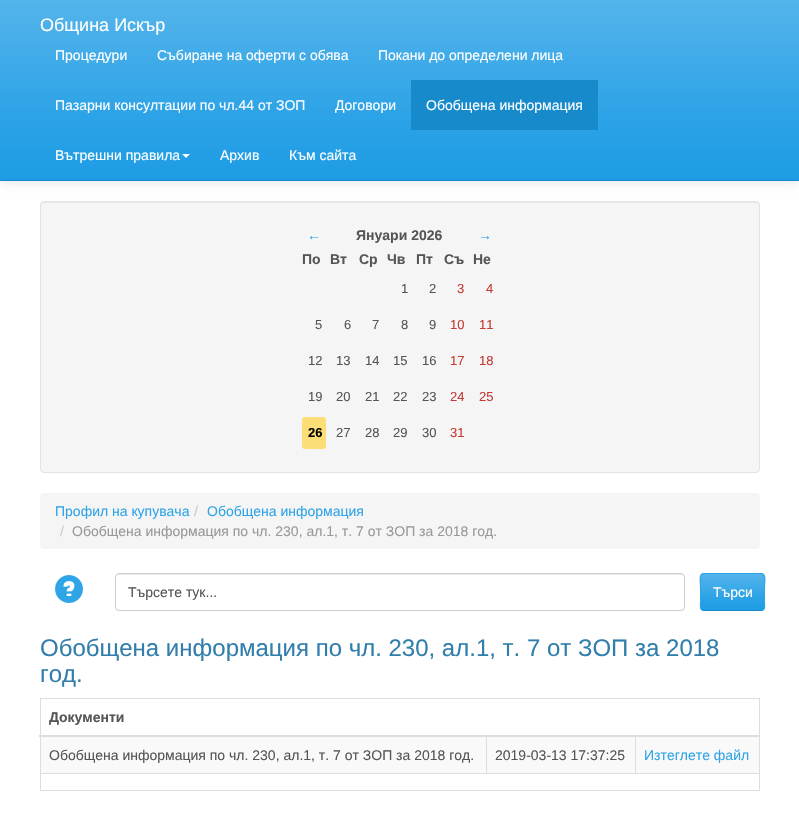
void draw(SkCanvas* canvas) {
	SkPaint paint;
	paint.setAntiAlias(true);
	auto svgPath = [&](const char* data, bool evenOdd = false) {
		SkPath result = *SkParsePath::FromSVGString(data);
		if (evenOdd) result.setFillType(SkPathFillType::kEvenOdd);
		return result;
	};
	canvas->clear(0xffffffff);
	paint.setColor(0x1a000000);
	paint.setMaskFilter(SkMaskFilter::MakeBlur(kNormal_SkBlurStyle, 5));
	canvas->drawRect(SkRect::MakeXYWH(0, 1, 799, 181), paint);
	paint.setMaskFilter(nullptr);
	{
		const SkColor colors[] = {0xff54b4eb, 0xff2fa4e7, 0xff1d9ce5};
		const float stops[] = {0, 0.6, 1};
		const SkPoint ends[] = {{400, 0}, {400, 180}};
		paint.setShader(SkGradientShader::MakeLinear(ends, colors, stops, 3, SkTileMode::kClamp));
		paint.setAlpha(255);
	}
	canvas->drawRect(SkRect::MakeXYWH(0, 0, 799, 180), paint);
	paint.setShader(nullptr);
	paint.setColor(0xff178acc);
	canvas->drawRect(SkRect::MakeXYWH(0, 180, 799, 1), paint);
	SkFont f1(fontMgr->matchFamilyStyle("Liberation Sans", SkFontStyle::Normal()), 18);
	f1.setSubpixel(true);
	paint.setColor(0xffffffff);
	canvas->drawString("Община Искър", 40, 31, f1, paint);
	SkFont f2(fontMgr->matchFamilyStyle("Liberation Sans", SkFontStyle::Normal()), 14);
	f2.setSubpixel(true);
	canvas->drawString("Процедури", 55, 60, f2, paint);
	canvas->drawString("Събиране на оферти с обява", 157, 60, f2, paint);
	canvas->drawString("Покани до определени лица", 378, 60, f2, paint);
	canvas->drawString("Пазарни консултации по чл.44 от ЗОП", 55, 110, f2, paint);
	canvas->drawString("Договори", 335, 110, f2, paint);
	paint.setColor(0xff178acc);
	canvas->drawRect(SkRect::MakeXYWH(411, 80, 187, 50), paint);
	paint.setColor(0xffffffff);
	canvas->drawString("Обобщена информация", 426, 110, f2, paint);
	canvas->drawString("Вътрешни правила", 55, 160, f2, paint);
	canvas->drawPath(svgPath("M182 154H190L186 158Z"), paint);
	canvas->drawString("Архив", 220, 160, f2, paint);
	canvas->drawString("Към сайта", 289, 160, f2, paint);
	paint.setColor(0xfff5f5f5);
	canvas->drawRoundRect(SkRect::MakeXYWH(40, 201, 720, 272), 4, 4, paint);
	paint.setColor(0xffe9e9e9);
	canvas->drawPath(svgPath("M44 203H756C758 203 759 204 759 206C759 204 758 202 756 202H44C42 202 41 204 41 206C41 204 42 203 44 203Z"), paint);
	paint.setStroke(true);
	paint.setStrokeWidth(1);
	paint.setColor(0xffe3e3e3);
	canvas->drawRoundRect(SkRect::MakeXYWH(40.5, 201.5, 719, 271), 3.5, 3.5, paint);
	SkFont f3(fontMgr->matchFamilyStyle("Liberation Sans", SkFontStyle::Bold()), 14);
	f3.setSubpixel(true);
	paint.setStroke(false);
	paint.setColor(0xff2fa4e7);
	canvas->drawString("←", 307, 240, f3, paint);
	paint.setColor(0xff555555);
	canvas->drawString("Януари 2026", 356, 240, f3, paint);
	paint.setColor(0xff2fa4e7);
	canvas->drawString("→", 478, 240, f3, paint);
	paint.setColor(0xff555555);
	canvas->drawString("По", 302, 264, f3, paint);
	canvas->drawString("Вт", 330, 264, f3, paint);
	canvas->drawString("Ср", 359, 264, f3, paint);
	canvas->drawString("Чв", 387, 264, f3, paint);
	canvas->drawString("Пт", 416, 264, f3, paint);
	canvas->drawString("Съ", 444, 264, f3, paint);
	canvas->drawString("Не", 473, 264, f3, paint);
	SkFont f4(fontMgr->matchFamilyStyle("Liberation Sans", SkFontStyle::Normal()), 13);
	f4.setSubpixel(true);
	canvas->drawString("1", 401, 293, f4, paint);
	canvas->drawString("2", 429, 293, f4, paint);
	paint.setColor(0xffc43c35);
	canvas->drawString("3", 457, 293, f4, paint);
	canvas->drawString("4", 486, 293, f4, paint);
	paint.setColor(0xff555555);
	canvas->drawString("5", 315, 329, f4, paint);
	canvas->drawString("6", 344, 329, f4, paint);
	canvas->drawString("7", 372, 329, f4, paint);
	canvas->drawString("8", 401, 329, f4, paint);
	canvas->drawString("9", 429, 329, f4, paint);
	paint.setColor(0xffc43c35);
	canvas->drawString("10", 450, 329, f4, paint);
	canvas->drawString("11", 479, 329, f4, paint);
	paint.setColor(0xff555555);
	canvas->drawString("12", 308, 365, f4, paint);
	canvas->drawString("13", 336, 365, f4, paint);
	canvas->drawString("14", 365, 365, f4, paint);
	canvas->drawString("15", 393, 365, f4, paint);
	canvas->drawString("16", 422, 365, f4, paint);
	paint.setColor(0xffc43c35);
	canvas->drawString("17", 450, 365, f4, paint);
	canvas->drawString("18", 479, 365, f4, paint);
	paint.setColor(0xff555555);
	canvas->drawString("19", 308, 401, f4, paint);
	canvas->drawString("20", 336, 401, f4, paint);
	canvas->drawString("21", 365, 401, f4, paint);
	canvas->drawString("22", 393, 401, f4, paint);
	canvas->drawString("23", 422, 401, f4, paint);
	paint.setColor(0xffc43c35);
	canvas->drawString("24", 450, 401, f4, paint);
	canvas->drawString("25", 479, 401, f4, paint);
	paint.setColor(0xfffcdd76);
	canvas->drawRoundRect(SkRect::MakeXYWH(302, 417, 24, 32), 3, 3, paint);
	SkFont f5(fontMgr->matchFamilyStyle("Liberation Sans", SkFontStyle::Bold()), 13);
	f5.setSubpixel(true);
	paint.setColor(0xff000000);
	canvas->drawString("26", 308, 437, f5, paint);
	paint.setColor(0xff555555);
	canvas->drawString("27", 336, 437, f4, paint);
	canvas->drawString("28", 365, 437, f4, paint);
	canvas->drawString("29", 393, 437, f4, paint);
	canvas->drawString("30", 422, 437, f4, paint);
	paint.setColor(0xffc43c35);
	canvas->drawString("31", 450, 437, f4, paint);
	paint.setColor(0xfff5f5f5);
	canvas->drawRoundRect(SkRect::MakeXYWH(40, 493, 720, 56), 4, 4, paint);
	paint.setColor(0xff2fa4e7);
	canvas->drawString("Профил на купувача", 55, 516, f2, paint);
	paint.setColor(0xffcccccc);
	canvas->drawString("/", 194, 516, f2, paint);
	paint.setColor(0xff2fa4e7);
	canvas->drawString("Обобщена информация", 207, 516, f2, paint);
	paint.setColor(0xffcccccc);
	canvas->drawString("/", 60, 536, f2, paint);
	paint.setColor(0xff999999);
	canvas->drawString("Обобщена информация по чл. 230, ал.1, т. 7 от ЗОП за 2018 год.", 72, 536, f2, paint);
	canvas->drawImageRect(SkImages::DeferredFromEncodedData(SkData::MakeFromFileName("img1.png")), SkRect::MakeXYWH(55, 575, 28, 28), SkSamplingOptions());
	paint.setColor(0xffececec);
	canvas->drawPath(svgPath("M119 575H681C683 575 684 576 684 578V577C684 575 683 574 681 574H119C117 574 116 575 116 577V578C116 576 117 575 119 575Z"), paint);
	paint.setStroke(true);
	paint.setColor(0xffcccccc);
	canvas->drawRoundRect(SkRect::MakeXYWH(115.5, 573.5, 569, 37), 3.5, 3.5, paint);
	paint.setStroke(false);
	paint.setColor(0xff555555);
	canvas->drawString("Търсете тук...", 128, 597, f2, paint);
	paint.setColor(0xff2fa4e7);
	canvas->drawRoundRect(SkRect::MakeXYWH(700, 573, 65, 38), 4, 4, paint);
	canvas->save();
	canvas->clipPath(svgPath("M704 573H761C763 573 765 575 765 577V607C765 609 763 611 761 611H704C702 611 700 609 700 607V577C700 575 702 573 704 573Z"), true);
	{
		const SkColor colors[] = {0xff54b4eb, 0xff2fa4e7, 0xff1d9ce5};
		const float stops[] = {0, 0.6, 1};
		const SkPoint ends[] = {{733, 574}, {733, 610}};
		paint.setShader(SkGradientShader::MakeLinear(ends, colors, stops, 3, SkTileMode::kClamp));
		paint.setAlpha(255);
	}
	canvas->drawRect(SkRect::MakeXYWH(701, 574, 63, 36), paint);
	canvas->restore();
	paint.setStroke(true);
	paint.setShader(nullptr);
	paint.setColor(0xff178acc);
	canvas->drawPath(svgPath("M763.5 609.5L761.5 610.5H703.5L701.5 609.5"), paint);
	paint.setColor(0xff2fa4e7);
	canvas->drawPath(svgPath("M701.5 609.5C699.5 607.5 700.5 604 700.5 602V592C700.5 573 696.5 573.5 713.5 573.5H751.5C768.5 573.5 764.5 573 764.5 592V602C764.5 604 765.5 607.5 763.5 609.5"), paint);
	paint.setStroke(false);
	paint.setColor(0xffffffff);
	canvas->drawString("Търси", 713, 597, f2, paint);
	SkFont f6(fontMgr->matchFamilyStyle("Liberation Sans", SkFontStyle::Normal()), 24);
	f6.setSubpixel(true);
	paint.setColor(0xff317eac);
	canvas->drawString("Обобщена информация по чл. 230, ал.1, т. 7 от ЗОП за 2018", 40, 656, f6, paint);
	canvas->drawString("год.", 40, 682, f6, paint);
	paint.setColor(0xffdddddd);
	canvas->drawRect(SkRect::MakeXYWH(40, 698, 720, 1), paint);
	canvas->drawRect(SkRect::MakeXYWH(759, 698, 1, 93), paint);
	canvas->drawRect(SkRect::MakeXYWH(40, 790, 720, 1), paint);
	canvas->drawRect(SkRect::MakeXYWH(40, 698, 1, 93), paint);
	canvas->drawRect(SkRect::MakeXYWH(40, 773, 720, 1), paint);
	canvas->drawRect(SkRect::MakeXYWH(486, 735, 1, 39), paint);
	canvas->drawRect(SkRect::MakeXYWH(635, 735, 1, 39), paint);
	canvas->drawRect(SkRect::MakeXYWH(39, 735, 721, 2), paint);
	paint.setColor(0xff555555);
	canvas->drawString("Документи", 49, 722, f3, paint);
	paint.setColor(0xfff9f9f9);
	canvas->drawRect(SkRect::MakeXYWH(41, 737, 445, 36), paint);
	paint.setColor(0xff555555);
	canvas->drawString("Обобщена информация по чл. 230, ал.1, т. 7 от ЗОП за 2018 год.", 49, 760, f2, paint);
	paint.setColor(0xfff9f9f9);
	canvas->drawRect(SkRect::MakeXYWH(487, 737, 148, 36), paint);
	paint.setColor(0xff555555);
	canvas->drawString("2019-03-13 17:37:25", 495, 760, f2, paint);
	paint.setColor(0xfff9f9f9);
	canvas->drawRect(SkRect::MakeXYWH(636, 737, 123, 36), paint);
	paint.setColor(0xff2fa4e7);
	canvas->drawString("Изтеглете файл", 644, 760, f2, paint);
}
